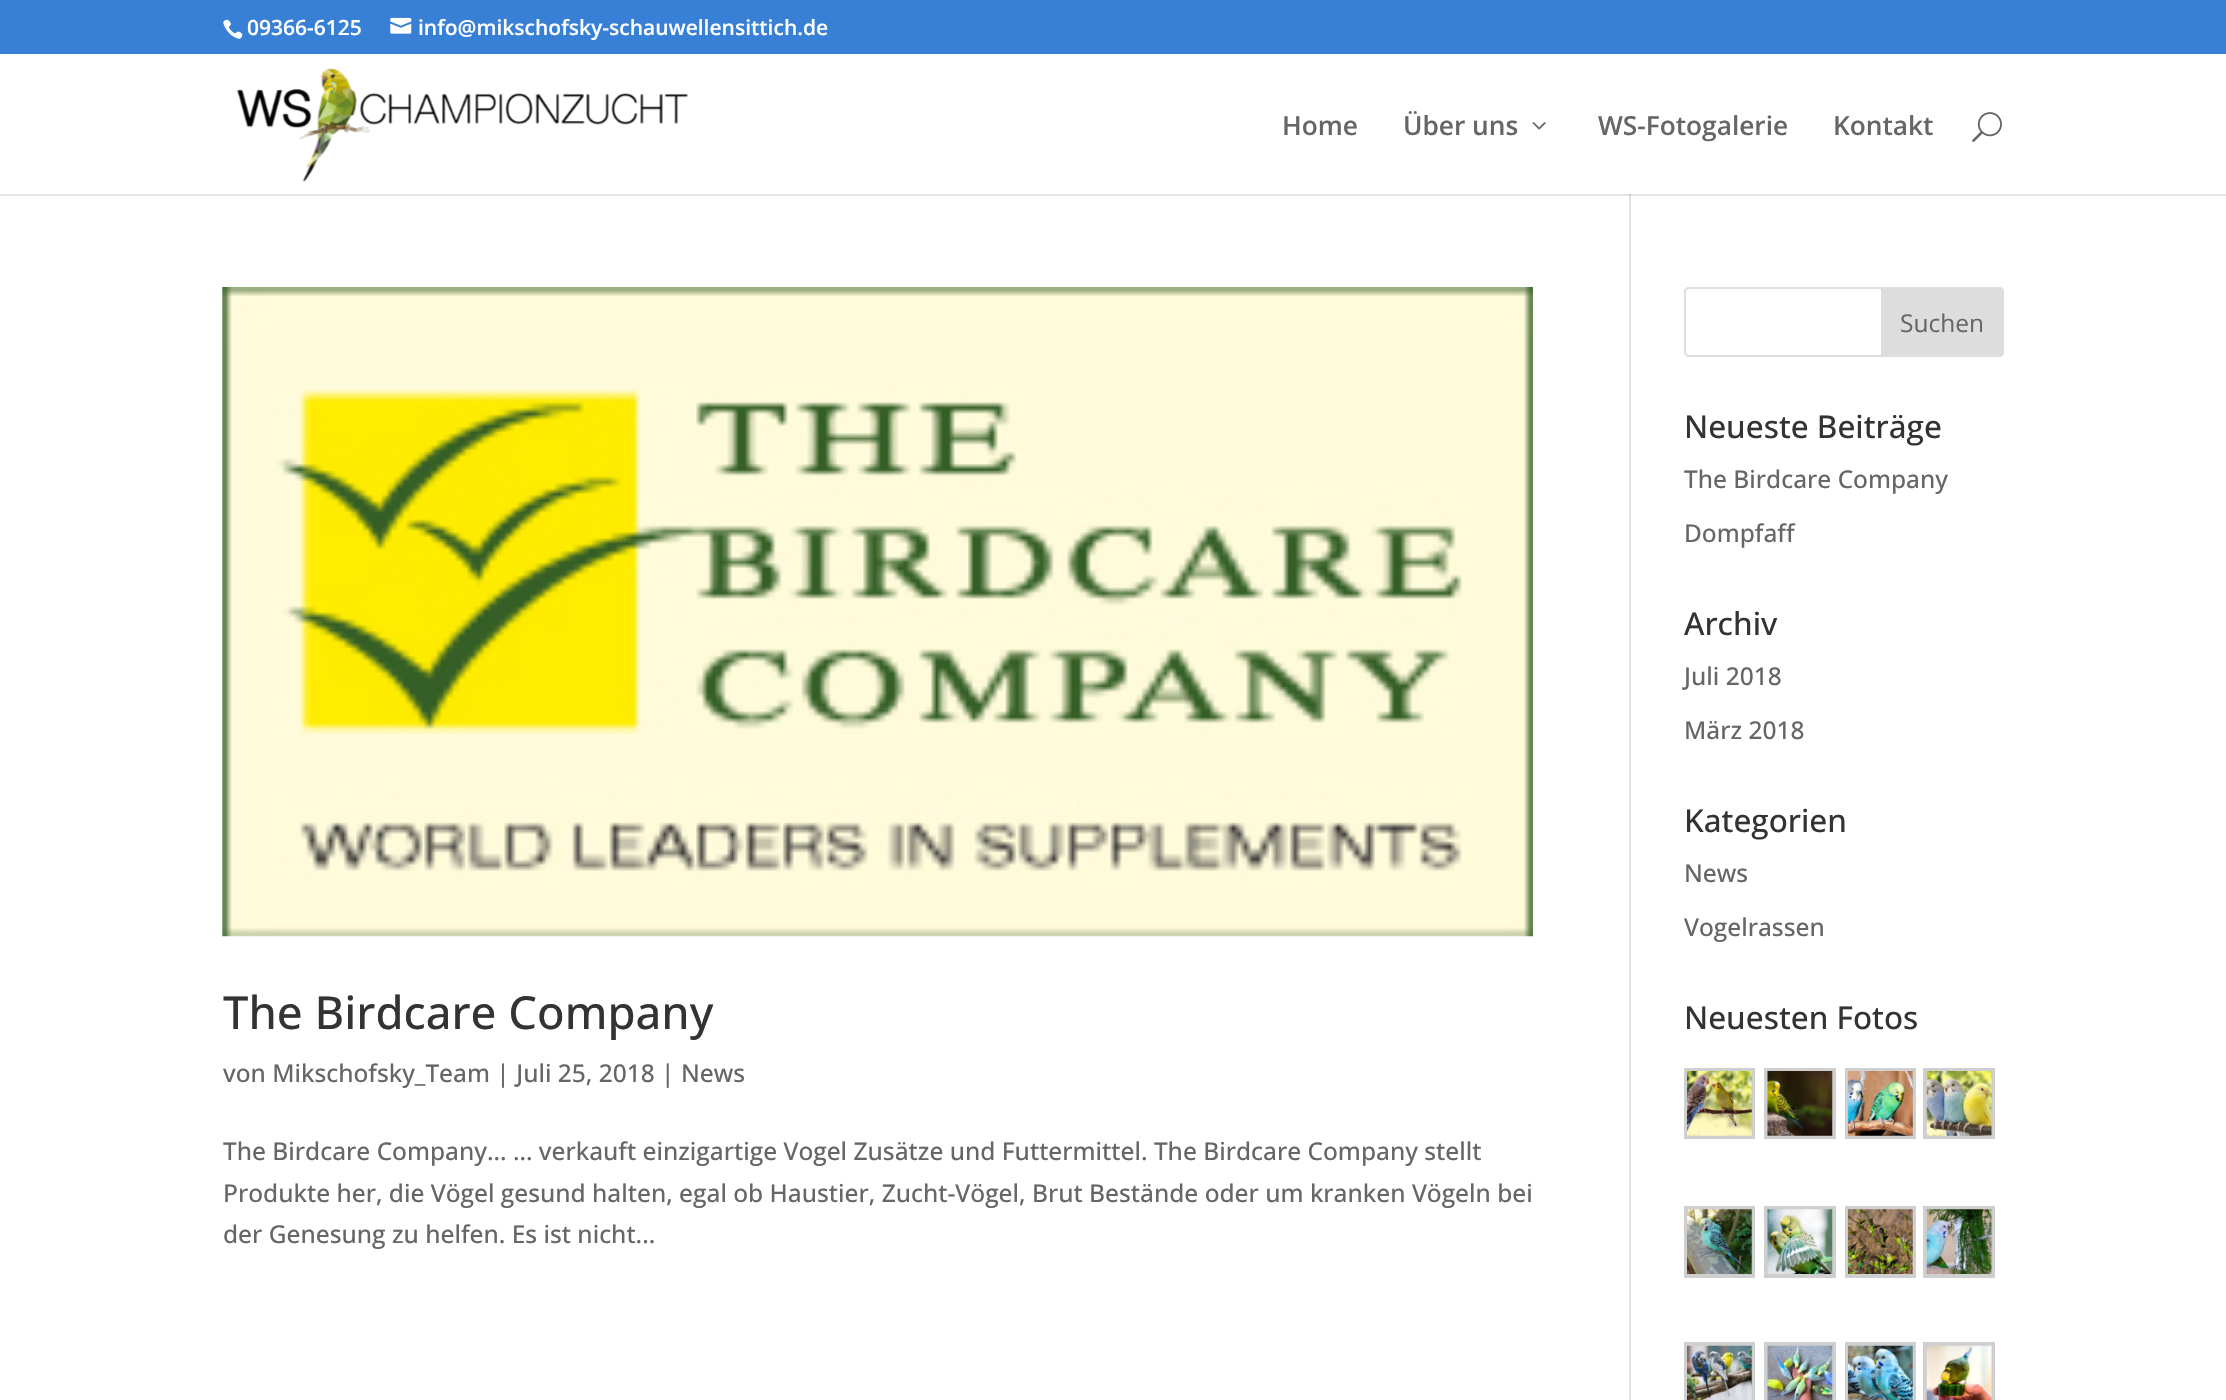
void draw(SkCanvas* canvas) {
	SkPaint paint;
	paint.setAntiAlias(true);
	auto svgPath = [&](const char* data, bool evenOdd = false) {
		SkPath result = *SkParsePath::FromSVGString(data);
		if (evenOdd) result.setFillType(SkPathFillType::kEvenOdd);
		return result;
	};
	canvas->clear(0xff3780d6);
	canvas->drawImageRect(SkImages::DeferredFromEncodedData(SkData::MakeFromFileName("img1.png")), SkRect::MakeXYWH(223, 19, 20, 20), SkSamplingOptions());
	SkFont f1(fontMgr->matchFamilyStyle("Open Sans", SkFontStyle(600, SkFontStyle::kNormal_Width, SkFontStyle::kUpright_Slant)), 21);
	f1.setSubpixel(true);
	paint.setColor(0xffffffff);
	canvas->drawString("09366-6125", 247, 35, f1, paint);
	canvas->drawImageRect(SkImages::DeferredFromEncodedData(SkData::MakeFromFileName("img2.png")), SkRect::MakeXYWH(390, 17, 22, 17), SkSamplingOptions());
	canvas->drawString("info@mikschofsky-schauwellensittich.de", 418, 35, f1, paint);
	canvas->drawRect(SkRect::MakeXYWH(0, 54, 2226, 140), paint);
	canvas->drawImageRect(SkImages::DeferredFromEncodedData(SkData::MakeFromFileName("img3.png")), SkRect::MakeXYWH(236, 68, 452, 114), SkSamplingOptions());
	SkFont f2(fontMgr->matchFamilyStyle("Open Sans", SkFontStyle(600, SkFontStyle::kNormal_Width, SkFontStyle::kUpright_Slant)), 26.25);
	f2.setSubpixel(true);
	paint.setColor(0xff666666);
	canvas->drawString("Home", 1282, 135, f2, paint);
	canvas->drawString("Über uns", 1403, 135, f2, paint);
	canvas->drawImageRect(SkImages::DeferredFromEncodedData(SkData::MakeFromFileName("img4.png")), SkRect::MakeXYWH(1532, 122, 14, 8), SkSamplingOptions());
	canvas->drawString("WS-Fotogalerie", 1598, 135, f2, paint);
	canvas->drawString("Kontakt", 1833, 135, f2, paint);
	canvas->drawImageRect(SkImages::DeferredFromEncodedData(SkData::MakeFromFileName("img5.png")), SkRect::MakeXYWH(1972, 112, 30, 30), SkSamplingOptions());
	paint.setColor(0xffffffff);
	canvas->drawRect(SkRect::MakeXYWH(0, 196, 2226, 1204), paint);
	paint.setColor(0xffe6e6e6);
	canvas->drawRect(SkRect::MakeXYWH(0, 194, 2226, 2), paint);
	paint.setColor(0xffe2e2e2);
	canvas->drawRect(SkRect::MakeXYWH(1629, 196, 2, 1204), paint);
	paint.setColor(0xffcbcbcb);
	canvas->drawRect(SkRect::MakeXYWH(1629, 194, 2, 2), paint);
	paint.setStroke(true);
	paint.setStrokeWidth(2);
	paint.setColor(0xffdddddd);
	canvas->drawRoundRect(SkRect::MakeXYWH(1685, 288, 318, 68), 4, 4, paint);
	paint.setStroke(false);
	canvas->drawPath(svgPath("M1882 288H1999C2001 288 2003 290 2003 292V352C2003 354 2001 356 1999 356H1882Z"), paint);
	paint.setStroke(true);
	canvas->drawPath(svgPath("M1882 288H1999C2001 288 2003 290 2003 292V352C2003 354 2001 356 1999 356H1882Z"), paint);
	SkFont f3(fontMgr->matchFamilyStyle("Open Sans", SkFontStyle::Normal()), 24.5);
	f3.setSubpixel(true);
	paint.setStroke(false);
	paint.setColor(0xff666666);
	canvas->drawString("Suchen", 1900, 332, f3, paint);
	SkFont f4(fontMgr->matchFamilyStyle("Open Sans", SkFontStyle(500, SkFontStyle::kNormal_Width, SkFontStyle::kUpright_Slant)), 31.5);
	f4.setSubpixel(true);
	paint.setColor(0xff333333);
	canvas->drawString("Neueste Beiträge", 1684, 438, f4, paint);
	SkFont f5(fontMgr->matchFamilyStyle("Open Sans", SkFontStyle(500, SkFontStyle::kNormal_Width, SkFontStyle::kUpright_Slant)), 24.5);
	f5.setSubpixel(true);
	paint.setColor(0xff666666);
	canvas->drawString("The Birdcare Company", 1684, 488, f5, paint);
	canvas->drawString("Dompfaff", 1684, 542, f5, paint);
	paint.setColor(0xff333333);
	canvas->drawString("Archiv", 1684, 635, f4, paint);
	paint.setColor(0xff666666);
	canvas->drawString("Juli 2018", 1684, 685, f5, paint);
	canvas->drawString("März 2018", 1684, 739, f5, paint);
	paint.setColor(0xff333333);
	canvas->drawString("Kategorien", 1684, 832, f4, paint);
	paint.setColor(0xff666666);
	canvas->drawString("News", 1684, 882, f5, paint);
	canvas->drawString("Vogelrassen", 1684, 936, f5, paint);
	paint.setColor(0xff333333);
	canvas->drawString("Neuesten Fotos", 1684, 1029, f4, paint);
	paint.setStroke(true);
	paint.setStrokeWidth(4);
	paint.setColor(0xffcfcfcf);
	canvas->drawRect(SkRect::MakeXYWH(1686, 1070, 67, 67), paint);
	canvas->drawImageRect(SkImages::DeferredFromEncodedData(SkData::MakeFromFileName("img6.png")), SkRect::MakeXYWH(1687, 1071, 65, 65), SkSamplingOptions());
	canvas->drawRect(SkRect::MakeXYWH(1766, 1070, 68, 67), paint);
	canvas->drawImageRect(SkImages::DeferredFromEncodedData(SkData::MakeFromFileName("img7.png")), SkRect::MakeXYWH(1767, 1071, 66, 65), SkSamplingOptions());
	canvas->drawRect(SkRect::MakeXYWH(1847, 1070, 67, 67), paint);
	canvas->drawImageRect(SkImages::DeferredFromEncodedData(SkData::MakeFromFileName("img8.png")), SkRect::MakeXYWH(1848, 1071, 65, 65), SkSamplingOptions());
	canvas->drawRect(SkRect::MakeXYWH(1925, 1070, 68, 67), paint);
	canvas->drawImageRect(SkImages::DeferredFromEncodedData(SkData::MakeFromFileName("img9.png")), SkRect::MakeXYWH(1926, 1071, 66, 65), SkSamplingOptions());
	canvas->drawRect(SkRect::MakeXYWH(1686, 1208, 67, 68), paint);
	canvas->drawImageRect(SkImages::DeferredFromEncodedData(SkData::MakeFromFileName("img10.png")), SkRect::MakeXYWH(1687, 1209, 65, 65), SkSamplingOptions());
	canvas->drawRect(SkRect::MakeXYWH(1766, 1208, 68, 68), paint);
	canvas->drawImageRect(SkImages::DeferredFromEncodedData(SkData::MakeFromFileName("img11.png")), SkRect::MakeXYWH(1767, 1209, 66, 65), SkSamplingOptions());
	canvas->drawRect(SkRect::MakeXYWH(1847, 1208, 67, 68), paint);
	canvas->drawImageRect(SkImages::DeferredFromEncodedData(SkData::MakeFromFileName("img12.png")), SkRect::MakeXYWH(1848, 1209, 65, 65), SkSamplingOptions());
	canvas->drawRect(SkRect::MakeXYWH(1925, 1208, 68, 68), paint);
	canvas->drawImageRect(SkImages::DeferredFromEncodedData(SkData::MakeFromFileName("img13.png")), SkRect::MakeXYWH(1926, 1209, 66, 65), SkSamplingOptions());
	canvas->drawRect(SkRect::MakeXYWH(1686, 1344, 67, 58), paint);
	canvas->drawImageRect(SkImages::DeferredFromEncodedData(SkData::MakeFromFileName("img14.png")), SkRect::MakeXYWH(1687, 1345, 65, 55), SkSamplingOptions());
	canvas->drawRect(SkRect::MakeXYWH(1766, 1344, 68, 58), paint);
	canvas->drawImageRect(SkImages::DeferredFromEncodedData(SkData::MakeFromFileName("img15.png")), SkRect::MakeXYWH(1767, 1345, 66, 55), SkSamplingOptions());
	canvas->drawRect(SkRect::MakeXYWH(1847, 1344, 67, 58), paint);
	canvas->drawImageRect(SkImages::DeferredFromEncodedData(SkData::MakeFromFileName("img16.png")), SkRect::MakeXYWH(1848, 1345, 65, 55), SkSamplingOptions());
	canvas->drawRect(SkRect::MakeXYWH(1925, 1344, 68, 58), paint);
	canvas->drawImageRect(SkImages::DeferredFromEncodedData(SkData::MakeFromFileName("img17.png")), SkRect::MakeXYWH(1926, 1345, 66, 55), SkSamplingOptions());
	canvas->drawImageRect(SkImages::DeferredFromEncodedData(SkData::MakeFromFileName("img18.png")), SkRect::MakeXYWH(222, 287, 1311, 650), SkSamplingOptions());
	SkFont f6(fontMgr->matchFamilyStyle("Open Sans", SkFontStyle(500, SkFontStyle::kNormal_Width, SkFontStyle::kUpright_Slant)), 45.5);
	f6.setSubpixel(true);
	paint.setStroke(false);
	paint.setColor(0xff333333);
	canvas->drawString("The Birdcare Company", 223, 1029, f6, paint);
	paint.setColor(0xff666666);
	canvas->drawString("von Mikschofsky_Team | Juli 25, 2018 | News", 223, 1082, f5, paint);
	canvas->drawString("The Birdcare Company… … verkauft einzigartige Vogel Zusätze und Futtermittel. The Birdcare Company stellt", 223, 1160, f5, paint);
	canvas->drawString("Produkte her, die Vögel gesund halten, egal ob Haustier, Zucht-Vögel, Brut Bestände oder um kranken Vögeln bei", 223, 1202, f5, paint);
	canvas->drawString("der Genesung zu helfen. Es ist nicht...", 223, 1243, f5, paint);
}
